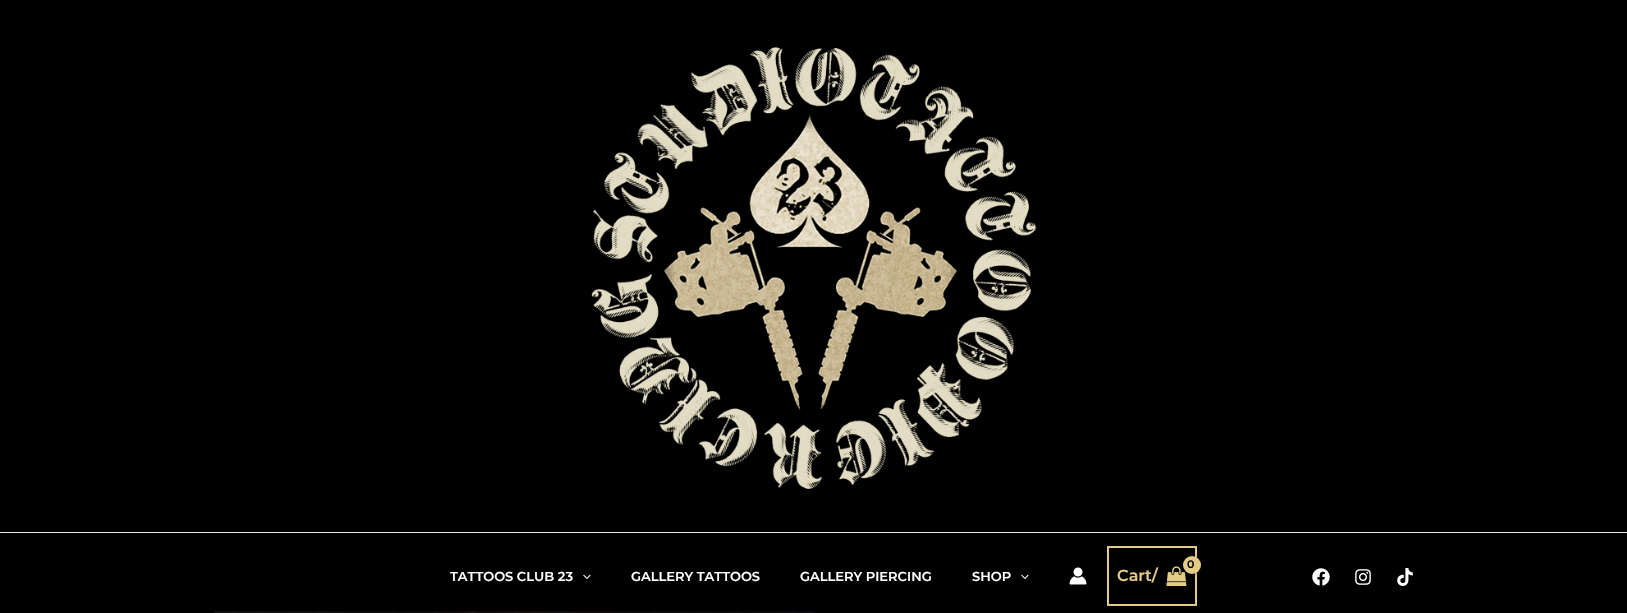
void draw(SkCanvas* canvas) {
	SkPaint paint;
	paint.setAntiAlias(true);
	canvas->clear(0xff000000);
	paint.setColor(0xffeaeaea);
	canvas->drawRect(SkRect::MakeXYWH(0, 532, 1627, 1), paint);
	canvas->drawImageRect(SkImages::DeferredFromEncodedData(SkData::MakeFromFileName("img1.png")), SkRect::MakeXYWH(591, 47, 446, 442), SkSamplingOptions());
	SkFont f1(fontMgr->matchFamilyStyle("Montserrat", SkFontStyle(600, SkFontStyle::kNormal_Width, SkFontStyle::kUpright_Slant)), 13);
	f1.setSubpixel(true);
	paint.setColor(0xffffffff);
	canvas->drawString("TATTOOS CLUB 23", 450, 581, f1, paint);
	canvas->drawImageRect(SkImages::DeferredFromEncodedData(SkData::MakeFromFileName("img2.png")), SkRect::MakeXYWH(583, 574, 8, 5), SkSamplingOptions());
	canvas->drawString("GALLERY TATTOOS", 631, 581, f1, paint);
	canvas->drawString("GALLERY PIERCING", 800, 581, f1, paint);
	canvas->drawString("SHOP", 972, 581, f1, paint);
	canvas->drawImageRect(SkImages::DeferredFromEncodedData(SkData::MakeFromFileName("img2.png")), SkRect::MakeXYWH(1021, 574, 8, 5), SkSamplingOptions());
	canvas->drawImageRect(SkImages::DeferredFromEncodedData(SkData::MakeFromFileName("img3.png")), SkRect::MakeXYWH(1069, 567, 18, 18), SkSamplingOptions());
	paint.setStroke(true);
	paint.setStrokeWidth(2);
	paint.setColor(0xffe4cb86);
	canvas->drawRect(SkRect::MakeXYWH(1108, 547, 88, 58), paint);
	canvas->drawImageRect(SkImages::DeferredFromEncodedData(SkData::MakeFromFileName("img4.png")), SkRect::MakeXYWH(1166, 566, 21, 20), SkSamplingOptions());
	paint.setStroke(false);
	paint.setColor(0x4d000000);
	paint.setMaskFilter(SkMaskFilter::MakeBlur(kNormal_SkBlurStyle, 1.5));
	canvas->drawRoundRect(SkRect::MakeXYWH(1184, 557, 18, 18), 9, 9, paint);
	paint.setMaskFilter(nullptr);
	paint.setColor(0xffe4cb86);
	canvas->drawCircle(1192, 565, 9, paint);
	SkFont f2(fontMgr->matchFamilyStyle("Montserrat", SkFontStyle(600, SkFontStyle::kNormal_Width, SkFontStyle::kUpright_Slant)), 11);
	f2.setSubpixel(true);
	paint.setColor(0xff000000);
	canvas->drawString("0", 1187, 568, f2, paint);
	SkFont f3(fontMgr->matchFamilyStyle("Montserrat", SkFontStyle(600, SkFontStyle::kNormal_Width, SkFontStyle::kUpright_Slant)), 16);
	f3.setSubpixel(true);
	paint.setColor(0xffe4cb86);
	canvas->drawString("Cart/", 1117, 581, f3, paint);
	canvas->drawImageRect(SkImages::DeferredFromEncodedData(SkData::MakeFromFileName("img5.png")), SkRect::MakeXYWH(1312, 568, 18, 18), SkSamplingOptions());
	canvas->drawImageRect(SkImages::DeferredFromEncodedData(SkData::MakeFromFileName("img6.png")), SkRect::MakeXYWH(1355, 569, 16, 16), SkSamplingOptions());
	canvas->drawImageRect(SkImages::DeferredFromEncodedData(SkData::MakeFromFileName("img7.png")), SkRect::MakeXYWH(1397, 568, 16, 18), SkSamplingOptions());
	canvas->drawImageRect(SkImages::DeferredFromEncodedData(SkData::MakeFromFileName("img8.png")), SkRect::MakeXYWH(214, 611, 600, 2), SkSamplingOptions());
}
